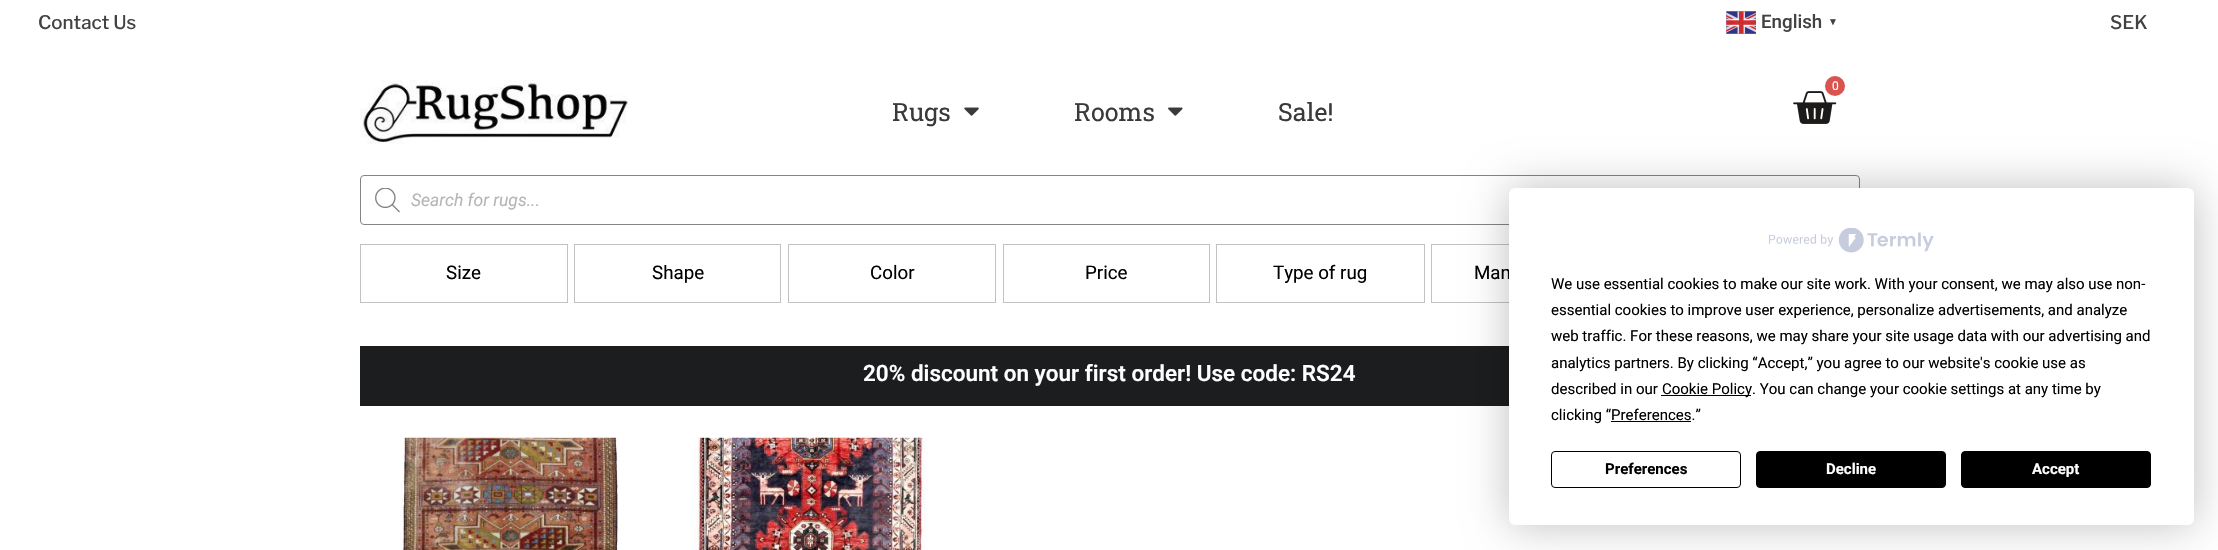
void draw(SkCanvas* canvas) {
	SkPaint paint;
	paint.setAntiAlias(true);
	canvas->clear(0xffffffff);
	SkFont f1(fontMgr->matchFamilyStyle("Libre Franklin", SkFontStyle(500, SkFontStyle::kNormal_Width, SkFontStyle::kUpright_Slant)), 18.75);
	f1.setSubpixel(true);
	paint.setColor(0xff424242);
	canvas->drawString("Contact Us", 38, 29, f1, paint);
	canvas->drawImageRect(SkImages::DeferredFromEncodedData(SkData::MakeFromFileName("img1.png")), SkRect::MakeXYWH(1726, 11, 30, 23), SkSamplingOptions());
	SkFont f2(fontMgr->matchFamilyStyle("Roboto", SkFontStyle(500, SkFontStyle::kNormal_Width, SkFontStyle::kUpright_Slant)), 18.75);
	f2.setSubpixel(true);
	canvas->drawString("English", 1761, 28, f2, paint);
	SkFont f3(fontMgr->matchFamilyStyle("Liberation Sans", SkFontStyle::Normal()), 10);
	f3.setSubpixel(true);
	canvas->drawString("▼", 1828, 25, f3, paint);
	canvas->drawString("SEK", 2110, 29, f1, paint);
	canvas->drawImageRect(SkImages::DeferredFromEncodedData(SkData::MakeFromFileName("img2.png")), SkRect::MakeXYWH(360, 80, 270, 64), SkSamplingOptions());
	canvas->drawImageRect(SkImages::DeferredFromEncodedData(SkData::MakeFromFileName("img3.png")), SkRect::MakeXYWH(1793, 91, 44, 33), SkSamplingOptions());
	paint.setColor(0xffd9534f);
	canvas->drawCircle(1835, 86, 10, paint);
	SkFont f4(fontMgr->matchFamilyStyle("Roboto", SkFontStyle::Normal()), 12);
	f4.setSubpixel(true);
	paint.setColor(0xffffffff);
	canvas->drawString("0", 1832, 90, f4, paint);
	SkFont f5(fontMgr->matchFamilyStyle("Roboto Slab", SkFontStyle::Normal()), 25);
	f5.setSubpixel(true);
	paint.setColor(0xff3a3a3a);
	canvas->drawString("Rugs", 892, 121, f5, paint);
	canvas->drawImageRect(SkImages::DeferredFromEncodedData(SkData::MakeFromFileName("img4.png")), SkRect::MakeXYWH(964, 107, 15, 9), SkSamplingOptions());
	canvas->drawString("Rooms", 1074, 121, f5, paint);
	canvas->drawImageRect(SkImages::DeferredFromEncodedData(SkData::MakeFromFileName("img5.png")), SkRect::MakeXYWH(1168, 107, 15, 9), SkSamplingOptions());
	canvas->drawString("Sale!", 1278, 121, f5, paint);
	paint.setStroke(true);
	paint.setStrokeWidth(1);
	paint.setColor(0xff848484);
	canvas->drawRoundRect(SkRect::MakeXYWH(360.5, 175.5, 1499, 49), 3.5, 3.5, paint);
	canvas->drawImageRect(SkImages::DeferredFromEncodedData(SkData::MakeFromFileName("img6.png")), SkRect::MakeXYWH(375, 188, 25, 25), SkSamplingOptions());
	SkFont f6(fontMgr->matchFamilyStyle("Roboto", SkFontStyle::Italic()), 17.5);
	f6.setSubpixel(true);
	paint.setStroke(false);
	paint.setColor(0xffb6b6b6);
	canvas->drawString("Search for rugs...", 411, 206, f6, paint);
	paint.setStroke(true);
	paint.setColor(0xffc2c2c2);
	canvas->drawRect(SkRect::MakeXYWH(360.5, 244.5, 207, 58), paint);
	SkFont f7(fontMgr->matchFamilyStyle("Roboto", SkFontStyle::Normal()), 18.75);
	f7.setSubpixel(true);
	paint.setStroke(false);
	paint.setColor(0xff000000);
	canvas->drawString("Size", 446, 279, f7, paint);
	paint.setStroke(true);
	paint.setColor(0xffc2c2c2);
	canvas->drawRect(SkRect::MakeXYWH(574.5, 244.5, 206, 58), paint);
	paint.setStroke(false);
	paint.setColor(0xff000000);
	canvas->drawString("Shape", 652, 279, f7, paint);
	paint.setStroke(true);
	paint.setColor(0xffc2c2c2);
	canvas->drawRect(SkRect::MakeXYWH(788.5, 244.5, 207, 58), paint);
	paint.setStroke(false);
	paint.setColor(0xff000000);
	canvas->drawString("Color", 870, 279, f7, paint);
	paint.setStroke(true);
	paint.setColor(0xffc2c2c2);
	canvas->drawRect(SkRect::MakeXYWH(1003.5, 244.5, 206, 58), paint);
	paint.setStroke(false);
	paint.setColor(0xff000000);
	canvas->drawString("Price", 1085, 279, f7, paint);
	paint.setStroke(true);
	paint.setColor(0xffc2c2c2);
	canvas->drawRect(SkRect::MakeXYWH(1216.5, 244.5, 208, 58), paint);
	paint.setStroke(false);
	paint.setColor(0xff000000);
	canvas->drawString("Type of rug", 1273, 279, f7, paint);
	paint.setStroke(true);
	paint.setColor(0xffc2c2c2);
	canvas->drawRect(SkRect::MakeXYWH(1431.5, 244.5, 207, 58), paint);
	paint.setStroke(false);
	paint.setColor(0xff000000);
	canvas->drawString("Man", 1474, 279, f7, paint);
	paint.setColor(0xff1c1d1e);
	canvas->drawRect(SkRect::MakeXYWH(360, 346, 1149, 60), paint);
	SkFont f8(fontMgr->matchFamilyStyle("Roboto", SkFontStyle(600, SkFontStyle::kNormal_Width, SkFontStyle::kUpright_Slant)), 22.5);
	f8.setSubpixel(true);
	paint.setColor(0xffffffff);
	canvas->drawString("20% discount on your first order! Use code: RS24", 863, 381, f8, paint);
	canvas->drawImageRect(SkImages::DeferredFromEncodedData(SkData::MakeFromFileName("img7.png")), SkRect::MakeXYWH(400, 437, 220, 113), SkSamplingOptions());
	canvas->drawImageRect(SkImages::DeferredFromEncodedData(SkData::MakeFromFileName("img8.png")), SkRect::MakeXYWH(691, 437, 237, 113), SkSamplingOptions());
	paint.setColor(0x40000000);
	paint.setMaskFilter(SkMaskFilter::MakeBlur(kNormal_SkBlurStyle, 22));
	canvas->drawRoundRect(SkRect::MakeXYWH(1509, 188, 685, 337), 6, 6, paint);
	paint.setMaskFilter(nullptr);
	paint.setColor(0xffffffff);
	canvas->drawRoundRect(SkRect::MakeXYWH(1509, 188, 685, 337), 6, 6, paint);
	canvas->drawImageRect(SkImages::DeferredFromEncodedData(SkData::MakeFromFileName("img9.png")), SkRect::MakeXYWH(1769, 228, 165, 25), SkSamplingOptions());
	SkFont f9(fontMgr->matchFamilyStyle("Roboto", SkFontStyle::Normal()), 15);
	f9.setSubpixel(true);
	paint.setColor(0xff000000);
	canvas->drawString("We use essential cookies to make our site work. With your consent, we may also use non-", 1551, 289, f9, paint);
	canvas->drawString("essential cookies to improve user experience, personalize advertisements, and analyze", 1551, 315, f9, paint);
	canvas->drawString("web traffic. For these reasons, we may share your site usage data with our advertising and", 1551, 341, f9, paint);
	canvas->drawString("analytics partners. By clicking “Accept,” you agree to our website's cookie use as", 1551, 368, f9, paint);
	canvas->drawString("described in our", 1551, 394, f9, paint);
	canvas->drawRect(SkRect::MakeXYWH(1661, 395, 90, 1), paint);
	canvas->drawString("Cookie Policy. You can change your cookie settings at any time by", 1662, 394, f9, paint);
	canvas->drawString("clicking “Preferences.”", 1551, 420, f9, paint);
	canvas->drawRect(SkRect::MakeXYWH(1611, 421, 80, 1), paint);
	paint.setStroke(true);
	canvas->drawRoundRect(SkRect::MakeXYWH(1551.5, 451.5, 189, 36), 3.5, 3.5, paint);
	SkFont f10(fontMgr->matchFamilyStyle("Roboto", SkFontStyle::Bold()), 15);
	f10.setSubpixel(true);
	paint.setStroke(false);
	canvas->drawString("Preferences", 1605, 474, f10, paint);
	canvas->drawRoundRect(SkRect::MakeXYWH(1756.5, 451.5, 189, 36), 3.5, 3.5, paint);
	paint.setStroke(true);
	canvas->drawRoundRect(SkRect::MakeXYWH(1756.5, 451.5, 189, 36), 3.5, 3.5, paint);
	paint.setStroke(false);
	paint.setColor(0xffffffff);
	canvas->drawString("Decline", 1826, 474, f10, paint);
	paint.setColor(0xff000000);
	canvas->drawRoundRect(SkRect::MakeXYWH(1961.5, 451.5, 189, 36), 3.5, 3.5, paint);
	paint.setStroke(true);
	canvas->drawRoundRect(SkRect::MakeXYWH(1961.5, 451.5, 189, 36), 3.5, 3.5, paint);
	paint.setStroke(false);
	paint.setColor(0xffffffff);
	canvas->drawString("Accept", 2032, 474, f10, paint);
}
